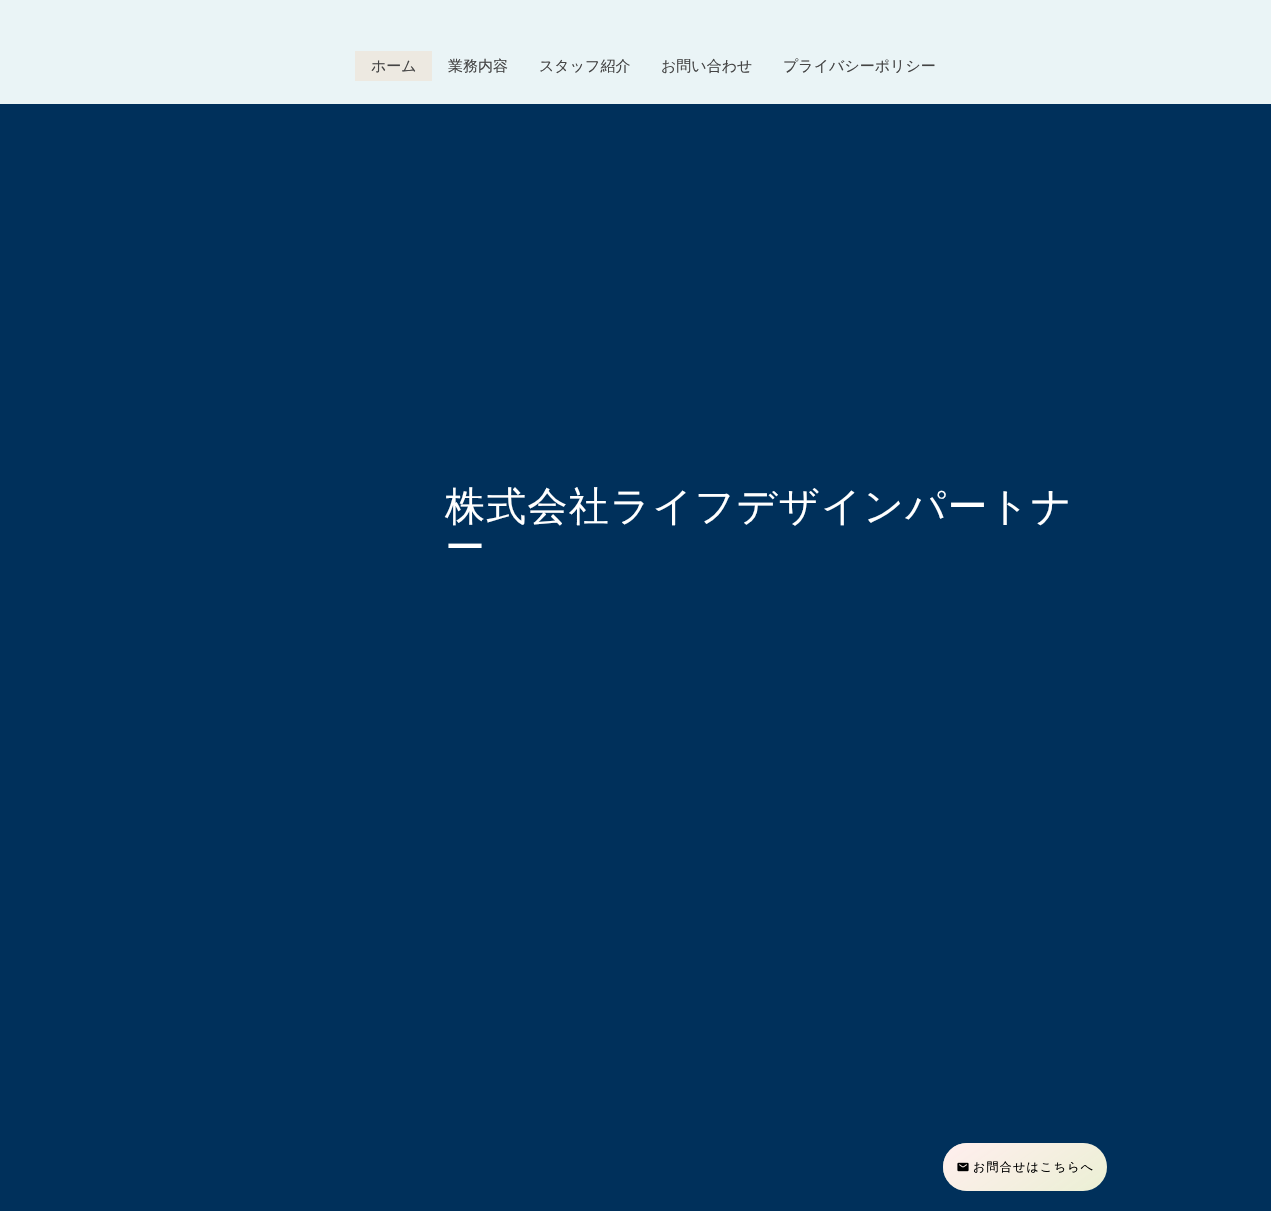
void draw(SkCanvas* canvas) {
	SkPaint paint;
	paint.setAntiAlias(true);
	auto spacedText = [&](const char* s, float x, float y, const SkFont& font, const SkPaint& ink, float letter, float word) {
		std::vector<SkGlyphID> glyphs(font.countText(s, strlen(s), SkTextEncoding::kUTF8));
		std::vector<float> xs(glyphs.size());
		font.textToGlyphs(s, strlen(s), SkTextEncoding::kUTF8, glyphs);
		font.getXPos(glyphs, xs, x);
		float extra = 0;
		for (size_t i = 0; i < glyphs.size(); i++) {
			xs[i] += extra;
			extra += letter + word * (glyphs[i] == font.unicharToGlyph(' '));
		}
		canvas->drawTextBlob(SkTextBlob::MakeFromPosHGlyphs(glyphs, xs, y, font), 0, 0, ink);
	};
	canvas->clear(0xff00305b);
	paint.setColor(0xffeaf4f6);
	canvas->drawRect(SkRect::MakeXYWH(0, 0, 1271, 104), paint);
	paint.setColor(0xffede9e1);
	canvas->drawRect(SkRect::MakeXYWH(355, 51, 77, 30), paint);
	SkFont f1(fontMgr->matchFamilyStyle("WenQuanYi Zen Hei", SkFontStyle(500, SkFontStyle::kNormal_Width, SkFontStyle::kUpright_Slant)), 15);
	f1.setSubpixel(true);
	paint.setColor(0xff444444);
	canvas->drawString("ホーム", 371, 71, f1, paint);
	canvas->drawString("業務内容", 448, 71, f1, paint);
	canvas->drawString("スタッフ紹介", 539, 71, f1, paint);
	canvas->drawString("お問い合わせ", 661, 71, f1, paint);
	canvas->drawString("プライバシーポリシー", 783, 71, f1, paint);
	SkFont f2(fontMgr->matchFamilyStyle("WenQuanYi Zen Hei", SkFontStyle(500, SkFontStyle::kNormal_Width, SkFontStyle::kUpright_Slant)), 40);
	f2.setSubpixel(true);
	paint.setColor(0xffffffff);
	spacedText("株式会社ライフデザインパートナ", 445, 520, f2, paint, 1.25, 0);
	spacedText("ー", 445, 561, f2, paint, 1.25, 0);
	paint.setColor(0xffebf0d4);
	canvas->drawRoundRect(SkRect::MakeXYWH(943, 1143, 164, 48), 24, 24, paint);
	{
		const SkColor colors[] = {0xffffeeee, 0x00ffeeee};
		const float stops[] = {0, 1};
		const SkPoint ends[] = {{987, 1112}, {1063, 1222}};
		paint.setShader(SkGradientShader::MakeLinear(ends, colors, stops, 2, SkTileMode::kClamp));
		paint.setAlpha(255);
	}
	canvas->drawRoundRect(SkRect::MakeXYWH(943, 1143, 164, 48), 24, 24, paint);
	canvas->drawImageRect(SkImages::DeferredFromEncodedData(SkData::MakeFromFileName("img1.png")), SkRect::MakeXYWH(957, 1162, 12, 10), SkSamplingOptions());
	SkFont f3(fontMgr->matchFamilyStyle("WenQuanYi Zen Hei", SkFontStyle(500, SkFontStyle::kNormal_Width, SkFontStyle::kUpright_Slant)), 12);
	f3.setSubpixel(true);
	paint.setShader(nullptr);
	paint.setColor(0xff000000);
	spacedText("お問合せはこちらへ", 973, 1171, f3, paint, 1.25, 0);
}
